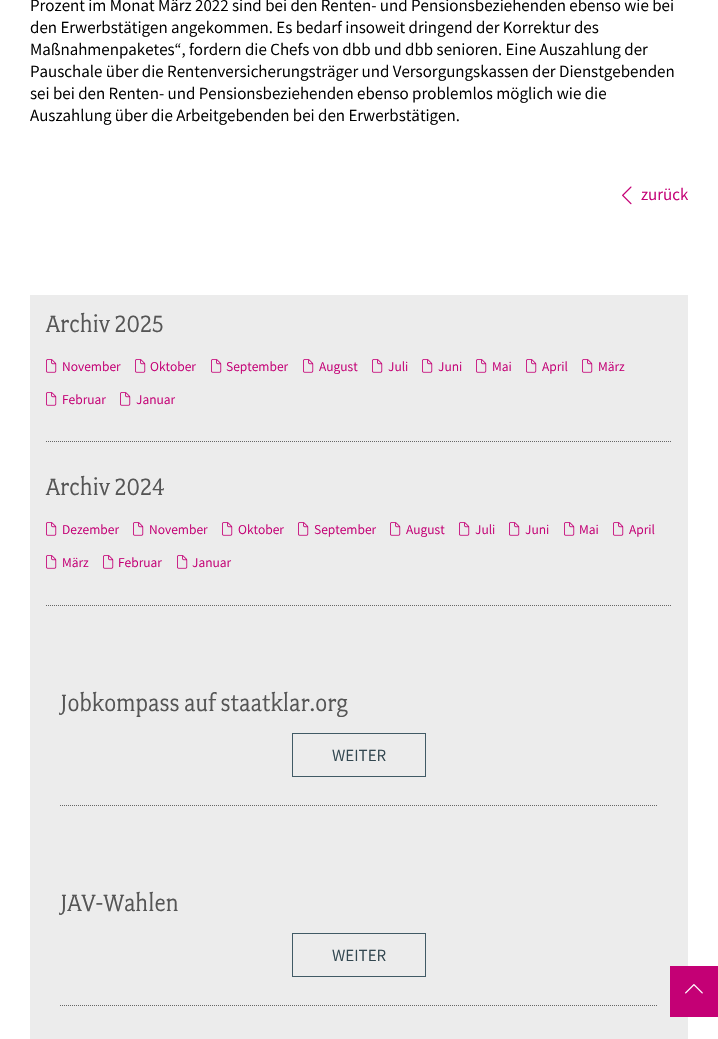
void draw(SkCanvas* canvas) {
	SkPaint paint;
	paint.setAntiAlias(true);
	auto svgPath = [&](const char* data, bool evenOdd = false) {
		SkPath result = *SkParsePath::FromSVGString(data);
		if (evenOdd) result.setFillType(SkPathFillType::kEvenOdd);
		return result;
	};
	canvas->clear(0xffffffff);
	SkFont f1(fontMgr->matchFamilyStyle("Assistant", SkFontStyle::Normal()), 17);
	f1.setSubpixel(true);
	paint.setColor(0xff000000);
	canvas->drawString("Prozent im Monat März 2022 sind bei den Renten- und Pensionsbeziehenden ebenso wie bei", 30, 11, f1, paint);
	canvas->drawString("den Erwerbstätigen angekommen. Es bedarf insoweit dringend der Korrektur des", 30, 33, f1, paint);
	canvas->drawString("Maßnahmenpaketes“, fordern die Chefs von dbb und dbb senioren. Eine Auszahlung der", 30, 55, f1, paint);
	canvas->drawString("Pauschale über die Rentenversicherungsträger und Versorgungskassen der Dienstgebenden", 30, 77, f1, paint);
	canvas->drawString("sei bei den Renten- und Pensionsbeziehenden ebenso problemlos möglich wie die", 30, 99, f1, paint);
	canvas->drawString("Auszahlung über die Arbeitgebenden bei den Erwerbstätigen.", 30, 121, f1, paint);
	canvas->drawImageRect(SkImages::DeferredFromEncodedData(SkData::MakeFromFileName("img1.png")), SkRect::MakeXYWH(622, 186, 10, 19), SkSamplingOptions());
	paint.setColor(0xffc40075);
	canvas->drawString("zurück", 641, 200, f1, paint);
	paint.setColor(0xffececec);
	canvas->drawRect(SkRect::MakeXYWH(30, 295, 658, 744), paint);
	paint.setStroke(true);
	paint.setStrokeWidth(1);
	paint.setColor(0xff666666);
	paint.setPathEffect(SkDashPathEffect::Make({{1, 1}}, 0));
	canvas->drawPath(svgPath("M46 441.5H672"), paint);
	paint.setPathEffect(nullptr);
	SkFont f2(fontMgr->matchFamilyStyle("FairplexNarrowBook", SkFontStyle::Normal()), 26.4);
	f2.setSubpixel(true);
	paint.setStroke(false);
	paint.setColor(0xff555555);
	canvas->drawString("Archiv 2025", 46, 332, f2, paint);
	canvas->drawImageRect(SkImages::DeferredFromEncodedData(SkData::MakeFromFileName("img2.png")), SkRect::MakeXYWH(46, 359, 11, 14), SkSamplingOptions());
	SkFont f3(fontMgr->matchFamilyStyle("Assistant", SkFontStyle::Normal()), 13.5);
	f3.setSubpixel(true);
	paint.setColor(0xffc40075);
	canvas->drawString("November", 62, 371, f3, paint);
	canvas->drawImageRect(SkImages::DeferredFromEncodedData(SkData::MakeFromFileName("img2.png")), SkRect::MakeXYWH(135, 359, 11, 14), SkSamplingOptions());
	canvas->drawString("Oktober", 150, 371, f3, paint);
	canvas->drawImageRect(SkImages::DeferredFromEncodedData(SkData::MakeFromFileName("img2.png")), SkRect::MakeXYWH(211, 359, 11, 14), SkSamplingOptions());
	canvas->drawString("September", 226, 371, f3, paint);
	canvas->drawImageRect(SkImages::DeferredFromEncodedData(SkData::MakeFromFileName("img2.png")), SkRect::MakeXYWH(303, 359, 11, 14), SkSamplingOptions());
	canvas->drawString("August", 319, 371, f3, paint);
	canvas->drawImageRect(SkImages::DeferredFromEncodedData(SkData::MakeFromFileName("img2.png")), SkRect::MakeXYWH(372, 359, 11, 14), SkSamplingOptions());
	canvas->drawString("Juli", 388, 371, f3, paint);
	canvas->drawImageRect(SkImages::DeferredFromEncodedData(SkData::MakeFromFileName("img2.png")), SkRect::MakeXYWH(422, 359, 11, 14), SkSamplingOptions());
	canvas->drawString("Juni", 438, 371, f3, paint);
	canvas->drawImageRect(SkImages::DeferredFromEncodedData(SkData::MakeFromFileName("img2.png")), SkRect::MakeXYWH(476, 359, 11, 14), SkSamplingOptions());
	canvas->drawString("Mai", 492, 371, f3, paint);
	canvas->drawImageRect(SkImages::DeferredFromEncodedData(SkData::MakeFromFileName("img2.png")), SkRect::MakeXYWH(526, 359, 11, 14), SkSamplingOptions());
	canvas->drawString("April", 542, 371, f3, paint);
	canvas->drawImageRect(SkImages::DeferredFromEncodedData(SkData::MakeFromFileName("img2.png")), SkRect::MakeXYWH(582, 359, 11, 14), SkSamplingOptions());
	canvas->drawString("März", 598, 371, f3, paint);
	canvas->drawImageRect(SkImages::DeferredFromEncodedData(SkData::MakeFromFileName("img2.png")), SkRect::MakeXYWH(46, 392, 11, 14), SkSamplingOptions());
	canvas->drawString("Februar", 62, 404, f3, paint);
	canvas->drawImageRect(SkImages::DeferredFromEncodedData(SkData::MakeFromFileName("img2.png")), SkRect::MakeXYWH(120, 392, 11, 14), SkSamplingOptions());
	canvas->drawString("Januar", 136, 404, f3, paint);
	paint.setStroke(true);
	paint.setColor(0xff666666);
	paint.setPathEffect(SkDashPathEffect::Make({{1, 1}}, 0));
	canvas->drawPath(svgPath("M46 605.5H672"), paint);
	paint.setPathEffect(nullptr);
	paint.setStroke(false);
	paint.setColor(0xff555555);
	canvas->drawString("Archiv 2024", 46, 495, f2, paint);
	canvas->drawImageRect(SkImages::DeferredFromEncodedData(SkData::MakeFromFileName("img2.png")), SkRect::MakeXYWH(46, 522, 11, 14), SkSamplingOptions());
	paint.setColor(0xffc40075);
	canvas->drawString("Dezember", 62, 534, f3, paint);
	canvas->drawImageRect(SkImages::DeferredFromEncodedData(SkData::MakeFromFileName("img2.png")), SkRect::MakeXYWH(133, 522, 11, 14), SkSamplingOptions());
	canvas->drawString("November", 149, 534, f3, paint);
	canvas->drawImageRect(SkImages::DeferredFromEncodedData(SkData::MakeFromFileName("img2.png")), SkRect::MakeXYWH(222, 522, 11, 14), SkSamplingOptions());
	canvas->drawString("Oktober", 238, 534, f3, paint);
	canvas->drawImageRect(SkImages::DeferredFromEncodedData(SkData::MakeFromFileName("img2.png")), SkRect::MakeXYWH(298, 522, 11, 14), SkSamplingOptions());
	canvas->drawString("September", 314, 534, f3, paint);
	canvas->drawImageRect(SkImages::DeferredFromEncodedData(SkData::MakeFromFileName("img2.png")), SkRect::MakeXYWH(390, 522, 11, 14), SkSamplingOptions());
	canvas->drawString("August", 406, 534, f3, paint);
	canvas->drawImageRect(SkImages::DeferredFromEncodedData(SkData::MakeFromFileName("img2.png")), SkRect::MakeXYWH(459, 522, 11, 14), SkSamplingOptions());
	canvas->drawString("Juli", 475, 534, f3, paint);
	canvas->drawImageRect(SkImages::DeferredFromEncodedData(SkData::MakeFromFileName("img2.png")), SkRect::MakeXYWH(509, 522, 11, 14), SkSamplingOptions());
	canvas->drawString("Juni", 525, 534, f3, paint);
	canvas->drawImageRect(SkImages::DeferredFromEncodedData(SkData::MakeFromFileName("img2.png")), SkRect::MakeXYWH(564, 522, 11, 14), SkSamplingOptions());
	canvas->drawString("Mai", 579, 534, f3, paint);
	canvas->drawImageRect(SkImages::DeferredFromEncodedData(SkData::MakeFromFileName("img2.png")), SkRect::MakeXYWH(613, 522, 11, 14), SkSamplingOptions());
	canvas->drawString("April", 629, 534, f3, paint);
	canvas->drawImageRect(SkImages::DeferredFromEncodedData(SkData::MakeFromFileName("img2.png")), SkRect::MakeXYWH(46, 555, 11, 14), SkSamplingOptions());
	canvas->drawString("März", 62, 567, f3, paint);
	canvas->drawImageRect(SkImages::DeferredFromEncodedData(SkData::MakeFromFileName("img2.png")), SkRect::MakeXYWH(103, 555, 11, 14), SkSamplingOptions());
	canvas->drawString("Februar", 118, 567, f3, paint);
	canvas->drawImageRect(SkImages::DeferredFromEncodedData(SkData::MakeFromFileName("img2.png")), SkRect::MakeXYWH(177, 555, 11, 14), SkSamplingOptions());
	canvas->drawString("Januar", 192, 567, f3, paint);
	paint.setColor(0xff555555);
	canvas->drawString("Jobkompass auf staatklar.org", 60, 711, f2, paint);
	paint.setStroke(true);
	paint.setColor(0xff415a65);
	canvas->drawRect(SkRect::MakeXYWH(292.5, 733.5, 133, 43), paint);
	paint.setStroke(false);
	paint.setColor(0xff324750);
	canvas->drawString("WEITER", 332, 761, f1, paint);
	paint.setStroke(true);
	paint.setColor(0xff666666);
	paint.setPathEffect(SkDashPathEffect::Make({{1, 1}}, 0));
	canvas->drawPath(svgPath("M60 805.5H658"), paint);
	paint.setPathEffect(nullptr);
	paint.setStroke(false);
	paint.setColor(0xff555555);
	canvas->drawString("JAV-Wahlen", 60, 911, f2, paint);
	paint.setStroke(true);
	paint.setColor(0xff415a65);
	canvas->drawRect(SkRect::MakeXYWH(292.5, 933.5, 133, 43), paint);
	paint.setStroke(false);
	paint.setColor(0xff324750);
	canvas->drawString("WEITER", 332, 961, f1, paint);
	paint.setStroke(true);
	paint.setColor(0xff666666);
	paint.setPathEffect(SkDashPathEffect::Make({{1, 1}}, 0));
	canvas->drawPath(svgPath("M60 1005.5H658"), paint);
	paint.setPathEffect(nullptr);
	paint.setStroke(false);
	paint.setColor(0xffc40075);
	canvas->drawRect(SkRect::MakeXYWH(670, 966, 48, 51), paint);
	canvas->drawImageRect(SkImages::DeferredFromEncodedData(SkData::MakeFromFileName("img3.png")), SkRect::MakeXYWH(685, 984, 18, 10), SkSamplingOptions());
}
